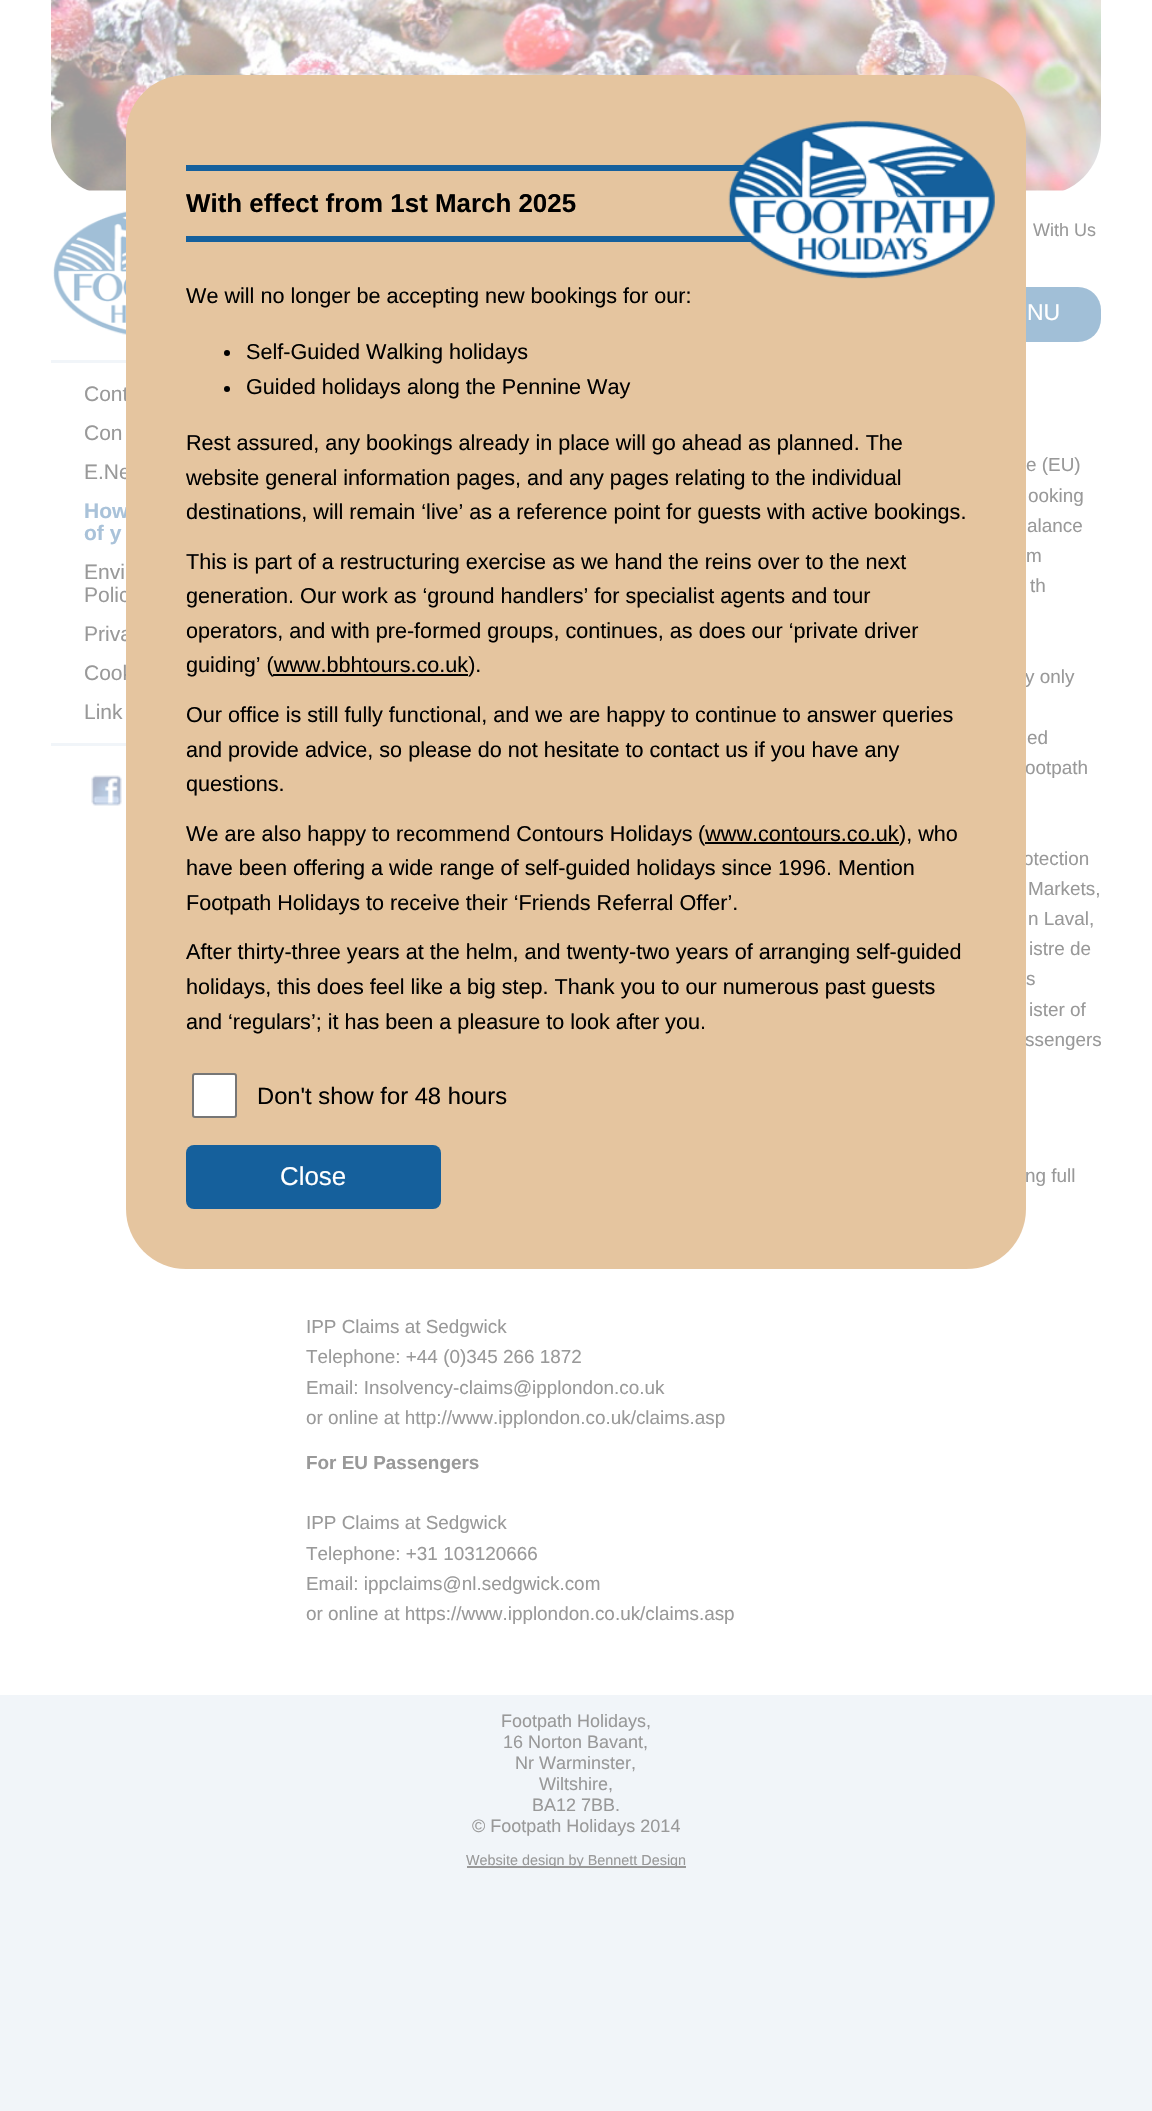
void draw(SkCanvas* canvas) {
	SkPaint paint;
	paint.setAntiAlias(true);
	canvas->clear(0xfff1f5f9);
	paint.setColor(0xffffffff);
	canvas->drawRect(SkRect::MakeXYWH(0, 0, 1152, 1695), paint);
	canvas->drawImageRect(SkImages::DeferredFromEncodedData(SkData::MakeFromFileName("img2.png")), SkRect::MakeXYWH(51, 0, 1050, 191), SkSamplingOptions());
	paint.setColor(0xffa1bfd7);
	canvas->drawRoundRect(SkRect::MakeXYWH(951, 287, 150, 55), 23, 23, paint);
	SkFont f1(fontMgr->matchFamilyStyle("Liberation Sans", SkFontStyle::Normal()), 21);
	f1.setSubpixel(true);
	paint.setColor(0xff999999);
	canvas->drawString("Cont", 84, 401, f1, paint);
	canvas->drawString("E.Ne", 84, 479, f1, paint);
	SkFont f2(fontMgr->matchFamilyStyle("Liberation Sans", SkFontStyle::Bold()), 21);
	f2.setSubpixel(true);
	paint.setColor(0xffa9c2d9);
	canvas->drawString("How", 84, 518, f2, paint);
	paint.setColor(0xff999999);
	canvas->drawString("Polic", 84, 602, f1, paint);
	canvas->drawString("Priva", 84, 641, f1, paint);
	canvas->drawString("Cook", 84, 680, f1, paint);
	SkFont f3(fontMgr->matchFamilyStyle("Liberation Sans", SkFontStyle::Normal()), 18.9);
	f3.setSubpixel(true);
	canvas->drawString("y only", 1025, 683, f3, paint);
	canvas->drawString("ootpath", 1025, 774, f3, paint);
	canvas->drawString("otection", 1023, 865, f3, paint);
	canvas->drawString("ssengers", 1025, 1046, f3, paint);
	canvas->drawString("ng full", 1025, 1182, f3, paint);
	paint.setColor(0xffe5c59f);
	canvas->drawRoundRect(SkRect::MakeXYWH(126, 75, 900, 1194), 60, 60, paint);
	paint.setColor(0xff15609c);
	canvas->drawRect(SkRect::MakeXYWH(186, 165, 558, 6), paint);
	canvas->drawRect(SkRect::MakeXYWH(186, 236, 567, 6), paint);
	SkFont f4(fontMgr->matchFamilyStyle("Liberation Sans", SkFontStyle::Bold()), 25.9);
	f4.setSubpixel(true);
	paint.setColor(0xff000000);
	canvas->drawString("With effect from 1st March 2025", 186, 212, f4, paint);
	canvas->drawImageRect(SkImages::DeferredFromEncodedData(SkData::MakeFromFileName("img1.png")), SkRect::MakeXYWH(728, 120, 267, 159), SkSamplingOptions());
	SkFont f5(fontMgr->matchFamilyStyle("Liberation Sans", SkFontStyle::Normal()), 21.6);
	f5.setSubpixel(true);
	canvas->drawString("We will no longer be accepting new bookings for our:", 186, 303, f5, paint);
	canvas->drawCircle(227, 353, 3, paint);
	canvas->drawString("Self-Guided Walking holidays", 246, 359, f5, paint);
	canvas->drawCircle(227, 389, 3, paint);
	canvas->drawString("Guided holidays along the Pennine Way", 246, 394, f5, paint);
	canvas->drawString("Rest assured, any bookings already in place will go ahead as planned. The", 186, 450, f5, paint);
	canvas->drawString("website general information pages, and any pages relating to the individual", 186, 485, f5, paint);
	canvas->drawString("destinations, will remain ‘live’ as a reference point for guests with active bookings.", 186, 519, f5, paint);
	canvas->drawString("This is part of a restructuring exercise as we hand the reins over to the next", 186, 569, f5, paint);
	canvas->drawString("generation. Our work as ‘ground handlers’ for specialist agents and tour", 186, 603, f5, paint);
	canvas->drawString("operators, and with pre-formed groups, continues, as does our ‘private driver", 186, 638, f5, paint);
	canvas->drawString("guiding’ (www.bbhtours.co.uk).", 186, 672, f5, paint);
	canvas->drawRect(SkRect::MakeXYWH(273, 674, 195, 2), paint);
	canvas->drawString("Our office is still fully functional, and we are happy to continue to answer queries", 186, 722, f5, paint);
	canvas->drawString("and provide advice, so please do not hesitate to contact us if you have any", 186, 757, f5, paint);
	canvas->drawString("questions.", 186, 791, f5, paint);
	canvas->drawString("We are also happy to recommend Contours Holidays", 186, 841, f5, paint);
	canvas->drawString("(www.contours.co.uk", 698, 841, f5, paint);
	canvas->drawRect(SkRect::MakeXYWH(705, 842, 194, 2), paint);
	canvas->drawString("), who", 899, 841, f5, paint);
	canvas->drawString("have been offering a wide range of self-guided holidays since 1996.", 186, 875, f5, paint);
	canvas->drawString("Mention", 838, 875, f5, paint);
	canvas->drawString("Footpath Holidays to receive their ‘Friends Referral Offer’.", 186, 910, f5, paint);
	canvas->drawString("After thirty-three years at the helm, and twenty-two years of arranging self-guided", 186, 959, f5, paint);
	canvas->drawString("holidays, this does feel like a big step. Thank you to our numerous past guests", 186, 994, f5, paint);
	canvas->drawString("and ‘regulars’; it has been a pleasure to look after you.", 186, 1029, f5, paint);
	paint.setColor(0xffffffff);
	canvas->drawRoundRect(SkRect::MakeXYWH(193, 1074, 43, 43), 2, 2, paint);
	paint.setStroke(true);
	paint.setStrokeWidth(2);
	paint.setColor(0xff767676);
	canvas->drawRoundRect(SkRect::MakeXYWH(193, 1074, 43, 43), 2, 2, paint);
	SkFont f6(fontMgr->matchFamilyStyle("Liberation Sans", SkFontStyle::Normal()), 23.75);
	f6.setSubpixel(true);
	paint.setStroke(false);
	paint.setColor(0xff000000);
	canvas->drawString("Don't show for 48 hours", 257, 1104, f6, paint);
	paint.setColor(0xff15609c);
	canvas->drawRoundRect(SkRect::MakeXYWH(186, 1145, 255, 64), 8, 8, paint);
	SkFont f7(fontMgr->matchFamilyStyle("Liberation Sans", SkFontStyle::Normal()), 25.9);
	f7.setSubpixel(true);
	paint.setColor(0xffffffff);
	canvas->drawString("Close", 280, 1185, f7, paint);
	SkFont f8(fontMgr->matchFamilyStyle("Liberation Sans", SkFontStyle::Normal()), 18);
	f8.setSubpixel(true);
	paint.setColor(0xff999999);
	canvas->drawString("Footpath Holidays,", 501, 1727, f8, paint);
	canvas->drawString("16 Norton Bavant,", 503, 1748, f8, paint);
	canvas->drawString("Nr Warminster,", 515, 1769, f8, paint);
	canvas->drawString("Wiltshire,", 539, 1790, f8, paint);
	canvas->drawString("BA12 7BB.", 532, 1811, f8, paint);
	canvas->drawString("© Footpath Holidays 2014", 472, 1832, f8, paint);
	canvas->drawRect(SkRect::MakeXYWH(467, 1866, 219, 2), paint);
	SkFont f9(fontMgr->matchFamilyStyle("Liberation Sans", SkFontStyle::Normal()), 14.4);
	f9.setSubpixel(true);
	canvas->drawString("Website design by Bennett Design", 466, 1865, f9, paint);
	canvas->drawImageRect(SkImages::DeferredFromEncodedData(SkData::MakeFromFileName("img3.png")), SkRect::MakeXYWH(53, 211, 73, 124), SkSamplingOptions());
	canvas->drawString("With Us", 1033, 236, f8, paint);
	SkFont f10(fontMgr->matchFamilyStyle("Liberation Sans", SkFontStyle::Normal()), 23);
	f10.setSubpixel(true);
	paint.setColor(0xffffffff);
	canvas->drawString("NU", 1027, 320, f10, paint);
	paint.setColor(0xfff1f5f9);
	canvas->drawRect(SkRect::MakeXYWH(51, 360, 75, 3), paint);
	canvas->drawRect(SkRect::MakeXYWH(51, 743, 75, 3), paint);
	paint.setColor(0xff999999);
	canvas->drawString("Con", 84, 440, f1, paint);
	paint.setColor(0xffa9c2d9);
	canvas->drawString("of y", 84, 540, f2, paint);
	paint.setColor(0xff999999);
	canvas->drawString("Envi", 84, 579, f1, paint);
	canvas->drawString("Link", 84, 719, f1, paint);
	canvas->drawImageRect(SkImages::DeferredFromEncodedData(SkData::MakeFromFileName("img4.png")), SkRect::MakeXYWH(91, 775, 31, 31), SkSamplingOptions());
	canvas->drawString("e (EU)", 1026, 471, f3, paint);
	canvas->drawString("ooking", 1028, 502, f3, paint);
	canvas->drawString("alance", 1027, 532, f3, paint);
	canvas->drawString("m", 1026, 562, f3, paint);
	canvas->drawString("th", 1030, 592, f3, paint);
	canvas->drawString("ed", 1027, 744, f3, paint);
	canvas->drawString("Markets,", 1028, 895, f3, paint);
	canvas->drawString("n Laval,", 1028, 925, f3, paint);
	canvas->drawString("istre de", 1029, 955, f3, paint);
	canvas->drawString("s", 1026, 985, f3, paint);
	canvas->drawString("ister of", 1029, 1016, f3, paint);
	canvas->drawString("IPP Claims at Sedgwick", 306, 1333, f3, paint);
	canvas->drawString("Telephone: +44 (0)345 266 1872", 306, 1363, f3, paint);
	canvas->drawString("Email: Insolvency-claims@ipplondon.co.uk", 306, 1394, f3, paint);
	canvas->drawString("or online at http://www.ipplondon.co.uk/claims.asp", 306, 1424, f3, paint);
	SkFont f11(fontMgr->matchFamilyStyle("Liberation Sans", SkFontStyle::Bold()), 18.9);
	f11.setSubpixel(true);
	canvas->drawString("For EU Passengers", 306, 1469, f11, paint);
	canvas->drawString("IPP Claims at Sedgwick", 306, 1529, f3, paint);
	canvas->drawString("Telephone: +31 103120666", 306, 1560, f3, paint);
	canvas->drawString("Email: ippclaims@nl.sedgwick.com", 306, 1590, f3, paint);
	canvas->drawString("or online at https://www.ipplondon.co.uk/claims.asp", 306, 1620, f3, paint);
}
